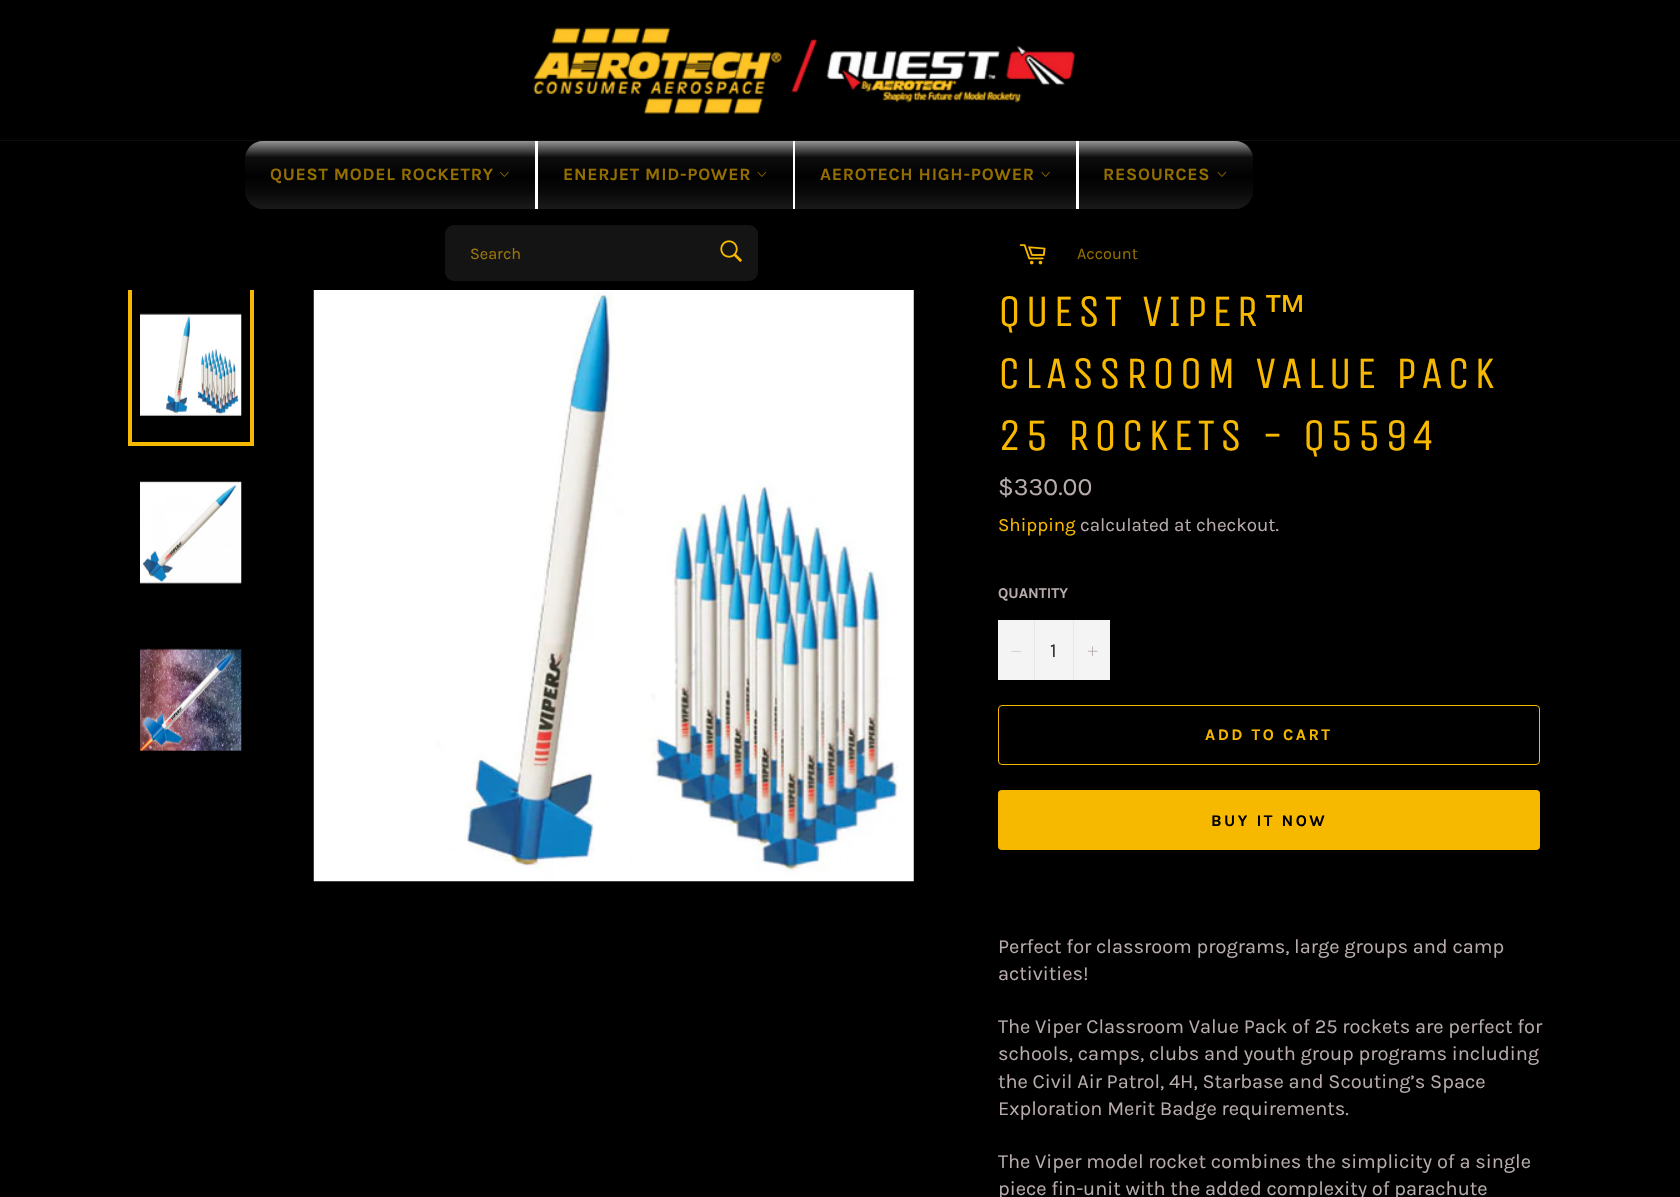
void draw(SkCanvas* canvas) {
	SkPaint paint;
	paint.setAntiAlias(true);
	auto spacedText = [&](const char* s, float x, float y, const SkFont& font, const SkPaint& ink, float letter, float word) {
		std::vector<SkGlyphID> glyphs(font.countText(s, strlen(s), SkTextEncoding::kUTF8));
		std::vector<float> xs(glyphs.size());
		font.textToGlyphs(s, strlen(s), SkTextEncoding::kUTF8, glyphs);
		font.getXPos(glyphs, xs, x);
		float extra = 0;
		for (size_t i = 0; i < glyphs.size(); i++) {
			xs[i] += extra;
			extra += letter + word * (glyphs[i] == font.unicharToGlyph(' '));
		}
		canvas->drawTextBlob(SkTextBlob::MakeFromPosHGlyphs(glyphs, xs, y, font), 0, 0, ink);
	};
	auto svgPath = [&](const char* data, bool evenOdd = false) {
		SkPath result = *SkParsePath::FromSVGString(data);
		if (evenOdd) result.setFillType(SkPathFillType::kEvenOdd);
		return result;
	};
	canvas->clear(0xff000000);
	canvas->drawImageRect(SkImages::DeferredFromEncodedData(SkData::MakeFromFileName("img7.png")), SkRect::MakeXYWH(140, 313, 102, 103), SkSamplingOptions());
	paint.setStroke(true);
	paint.setStrokeWidth(4);
	paint.setColor(0xfff7b800);
	canvas->drawRect(SkRect::MakeXYWH(130, 286, 122, 158), paint);
	paint.setStroke(false);
	paint.setColor(0xff000000);
	canvas->drawRect(SkRect::MakeXYWH(128, 284, 126, 6), paint);
	canvas->drawImageRect(SkImages::DeferredFromEncodedData(SkData::MakeFromFileName("img1.png")), SkRect::MakeXYWH(533, 27, 543, 87), SkSamplingOptions());
	paint.setColor(0xff0d0d0d);
	canvas->drawRect(SkRect::MakeXYWH(0, 140, 1680, 1), paint);
	{
		const SkColor colors[] = {0xff959595, 0xff0d0d0d, 0xff010101, 0xff0a0a0a, 0xff1b1b1b};
		const float stops[] = {0, 0.24, 0.52, 0.76, 1};
		const SkPoint ends[] = {{390, 141}, {390, 209}};
		paint.setShader(SkGradientShader::MakeLinear(ends, colors, stops, 5, SkTileMode::kClamp));
		paint.setAlpha(255);
	}
	canvas->drawPath(svgPath("M263 141H538V209H263C253 209 245 201 245 191V159C245 149 253 141 263 141Z"), paint);
	paint.setShader(nullptr);
	paint.setColor(0xffffffff);
	canvas->drawRect(SkRect::MakeXYWH(535, 141, 3, 68), paint);
	SkFont f1(fontMgr->matchFamilyStyle("Karla", SkFontStyle::Bold()), 17.5);
	f1.setSubpixel(true);
	paint.setColor(0xff946e00);
	spacedText("QUEST MODEL ROCKETRY", 270, 180, f1, paint, 0.75, 0);
	canvas->drawImageRect(SkImages::DeferredFromEncodedData(SkData::MakeFromFileName("img2.png")), SkRect::MakeXYWH(500, 171, 9, 6), SkSamplingOptions());
	{
		const SkColor colors[] = {0xff959595, 0xff0d0d0d, 0xff010101, 0xff0a0a0a, 0xff1b1b1b};
		const float stops[] = {0, 0.24, 0.52, 0.76, 1};
		const SkPoint ends[] = {{665, 141}, {665, 209}};
		paint.setShader(SkGradientShader::MakeLinear(ends, colors, stops, 5, SkTileMode::kClamp));
		paint.setAlpha(255);
	}
	canvas->drawRect(SkRect::MakeXYWH(538, 141, 255, 68), paint);
	paint.setShader(nullptr);
	paint.setColor(0xffffffff);
	canvas->drawRect(SkRect::MakeXYWH(793, 141, 2, 68), paint);
	paint.setColor(0xff946e00);
	spacedText("ENERJET MID-POWER", 563, 180, f1, paint, 0.75, 0);
	canvas->drawImageRect(SkImages::DeferredFromEncodedData(SkData::MakeFromFileName("img3.png")), SkRect::MakeXYWH(757, 171, 10, 6), SkSamplingOptions());
	{
		const SkColor colors[] = {0xff959595, 0xff0d0d0d, 0xff010101, 0xff0a0a0a, 0xff1b1b1b};
		const float stops[] = {0, 0.24, 0.52, 0.76, 1};
		const SkPoint ends[] = {{936, 141}, {936, 209}};
		paint.setShader(SkGradientShader::MakeLinear(ends, colors, stops, 5, SkTileMode::kClamp));
		paint.setAlpha(255);
	}
	canvas->drawRect(SkRect::MakeXYWH(795, 141, 281, 68), paint);
	paint.setShader(nullptr);
	paint.setColor(0xffffffff);
	canvas->drawRect(SkRect::MakeXYWH(1076, 141, 3, 68), paint);
	paint.setColor(0xff946e00);
	spacedText("AEROTECH HIGH-POWER", 820, 180, f1, paint, 0.75, 0);
	canvas->drawImageRect(SkImages::DeferredFromEncodedData(SkData::MakeFromFileName("img4.png")), SkRect::MakeXYWH(1041, 171, 9, 6), SkSamplingOptions());
	{
		const SkColor colors[] = {0xff959595, 0xff0d0d0d, 0xff010101, 0xff0a0a0a, 0xff1b1b1b};
		const float stops[] = {0, 0.24, 0.52, 0.76, 1};
		const SkPoint ends[] = {{1166, 141}, {1166, 209}};
		paint.setShader(SkGradientShader::MakeLinear(ends, colors, stops, 5, SkTileMode::kClamp));
		paint.setAlpha(255);
	}
	canvas->drawPath(svgPath("M1079 141H1235C1245 141 1253 149 1253 159V191C1253 201 1245 209 1235 209H1079Z"), paint);
	paint.setShader(nullptr);
	paint.setColor(0xff946e00);
	spacedText("RESOURCES", 1103, 180, f1, paint, 0.75, 0);
	canvas->drawImageRect(SkImages::DeferredFromEncodedData(SkData::MakeFromFileName("img3.png")), SkRect::MakeXYWH(1217, 171, 10, 6), SkSamplingOptions());
	paint.setColor(0xff141414);
	canvas->drawRoundRect(SkRect::MakeXYWH(445, 225, 313, 56), 9, 9, paint);
	SkFont f2(fontMgr->matchFamilyStyle("Karla", SkFontStyle::Normal()), 16.25);
	f2.setSubpixel(true);
	paint.setColor(0xff9c7608);
	canvas->drawString("Search", 470, 259, f2, paint);
	canvas->drawImageRect(SkImages::DeferredFromEncodedData(SkData::MakeFromFileName("img5.png")), SkRect::MakeXYWH(720, 240, 22, 22), SkSamplingOptions());
	canvas->drawImageRect(SkImages::DeferredFromEncodedData(SkData::MakeFromFileName("img6.png")), SkRect::MakeXYWH(1019, 244, 27, 21), SkSamplingOptions());
	paint.setColor(0xff946e00);
	canvas->drawString("Account", 1077, 259, f2, paint);
	canvas->drawImageRect(SkImages::DeferredFromEncodedData(SkData::MakeFromFileName("img8.png")), SkRect::MakeXYWH(140, 481, 102, 103), SkSamplingOptions());
	canvas->drawImageRect(SkImages::DeferredFromEncodedData(SkData::MakeFromFileName("img9.png")), SkRect::MakeXYWH(140, 648, 102, 103), SkSamplingOptions());
	canvas->drawImageRect(SkImages::DeferredFromEncodedData(SkData::MakeFromFileName("img10.png")), SkRect::MakeXYWH(313, 290, 601, 592), SkSamplingOptions());
	SkFont f3(fontMgr->matchFamilyStyle("Unica One", SkFontStyle::Normal()), 45);
	f3.setSubpixel(true);
	paint.setColor(0xfff7b800);
	spacedText("QUEST VIPER", 998, 326, f3, paint, 4.5, 0);
	SkFont f4(fontMgr->matchFamilyStyle("Liberation Sans", SkFontStyle::Normal()), 45);
	f4.setSubpixel(true);
	spacedText("™", 1262, 326, f4, paint, 4.5, 0);
	spacedText("CLASSROOM VALUE PACK", 998, 388, f3, paint, 4.5, 0);
	spacedText("25 ROCKETS - Q5594", 998, 450, f3, paint, 4.5, 0);
	SkFont f5(fontMgr->matchFamilyStyle("Karla", SkFontStyle::Normal()), 25);
	f5.setSubpixel(true);
	paint.setColor(0xffb7abab);
	canvas->drawString("$330.00", 998, 495, f5, paint);
	SkFont f6(fontMgr->matchFamilyStyle("Karla", SkFontStyle::Normal()), 18.75);
	f6.setSubpixel(true);
	paint.setColor(0xfff7b800);
	canvas->drawString("Shipping", 998, 531, f6, paint);
	paint.setColor(0xffb7abab);
	canvas->drawString("calculated at checkout.", 1080, 531, f6, paint);
	SkFont f7(fontMgr->matchFamilyStyle("Karla", SkFontStyle::Bold()), 15);
	f7.setSubpixel(true);
	canvas->drawString("QUANTITY", 998, 598, f7, paint);
	paint.setColor(0xfff4f4f4);
	canvas->drawRect(SkRect::MakeXYWH(998, 620, 112, 60), paint);
	paint.setColor(0xffe7e7e7);
	canvas->drawRect(SkRect::MakeXYWH(1034, 620, 1, 60), paint);
	paint.setColor(0xffb7abab);
	canvas->drawPath(svgPath("M1021 651V651.5H1011.5V651Z", true), paint);
	SkFont f8(fontMgr->matchFamilyStyle("Karla", SkFontStyle::Normal()), 20);
	f8.setSubpixel(true);
	paint.setColor(0xff333333);
	canvas->drawString("1", 1050, 657, f8, paint);
	paint.setColor(0xffe7e7e7);
	canvas->drawRect(SkRect::MakeXYWH(1073, 620, 1, 60), paint);
	canvas->drawImageRect(SkImages::DeferredFromEncodedData(SkData::MakeFromFileName("img11.png")), SkRect::MakeXYWH(1088, 646, 10, 10), SkSamplingOptions());
	paint.setStroke(true);
	paint.setStrokeWidth(1);
	paint.setColor(0xfff7b800);
	canvas->drawRoundRect(SkRect::MakeXYWH(998.5, 705.5, 541, 59), 3.5, 3.5, paint);
	SkFont f9(fontMgr->matchFamilyStyle("Karla", SkFontStyle::Bold()), 16.25);
	f9.setSubpixel(true);
	paint.setStroke(false);
	spacedText("ADD TO CART", 1205, 740, f9, paint, 2.5, 0);
	canvas->drawRoundRect(SkRect::MakeXYWH(998, 790, 542, 60), 4, 4, paint);
	paint.setColor(0xff000000);
	spacedText("BUY IT NOW", 1211, 826, f9, paint, 2.5, 0);
	paint.setColor(0xffb7abab);
	canvas->drawString("Perfect for classroom programs, large groups and camp", 998, 953, f8, paint);
	canvas->drawString("activities!", 998, 980, f8, paint);
	canvas->drawString("The Viper Classroom Value Pack of 25 rockets are perfect for", 998, 1033, f8, paint);
	canvas->drawString("schools, camps, clubs and youth group programs including", 998, 1060, f8, paint);
	canvas->drawString("the Civil Air Patrol, 4H, Starbase and Scouting’s Space", 998, 1088, f8, paint);
	canvas->drawString("Exploration Merit Badge requirements.", 998, 1115, f8, paint);
	canvas->drawString("The Viper model rocket combines the simplicity of a single", 998, 1168, f8, paint);
	canvas->drawString("piece fin-unit with the added complexity of parachute", 998, 1195, f8, paint);
}
